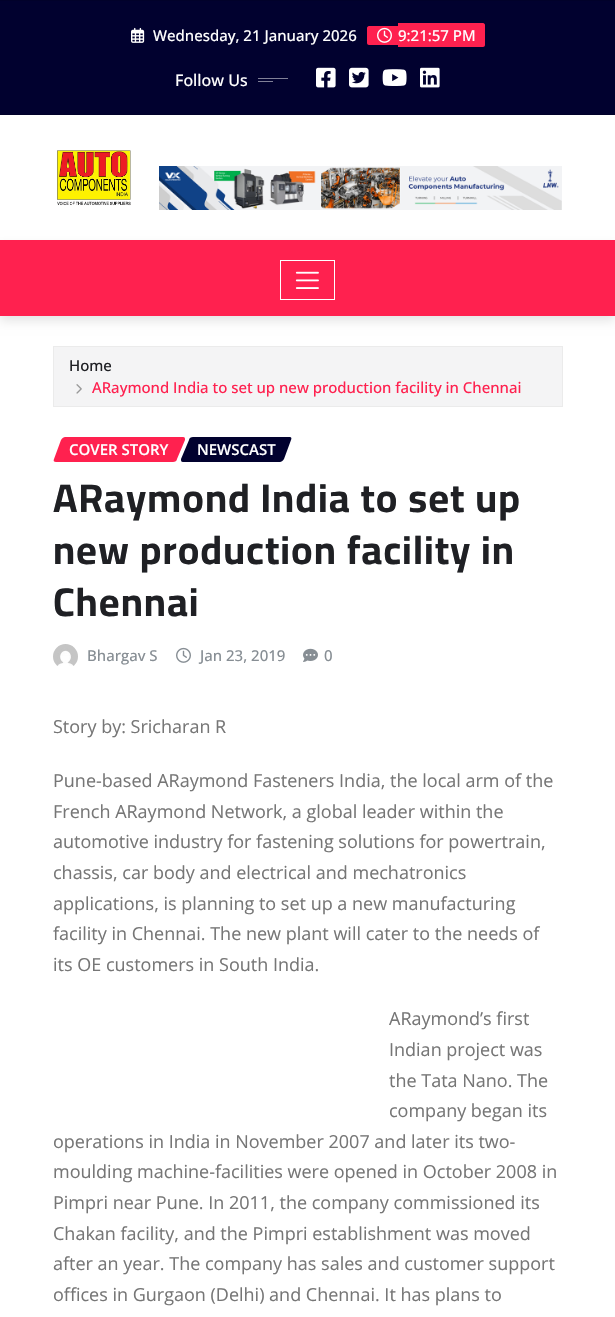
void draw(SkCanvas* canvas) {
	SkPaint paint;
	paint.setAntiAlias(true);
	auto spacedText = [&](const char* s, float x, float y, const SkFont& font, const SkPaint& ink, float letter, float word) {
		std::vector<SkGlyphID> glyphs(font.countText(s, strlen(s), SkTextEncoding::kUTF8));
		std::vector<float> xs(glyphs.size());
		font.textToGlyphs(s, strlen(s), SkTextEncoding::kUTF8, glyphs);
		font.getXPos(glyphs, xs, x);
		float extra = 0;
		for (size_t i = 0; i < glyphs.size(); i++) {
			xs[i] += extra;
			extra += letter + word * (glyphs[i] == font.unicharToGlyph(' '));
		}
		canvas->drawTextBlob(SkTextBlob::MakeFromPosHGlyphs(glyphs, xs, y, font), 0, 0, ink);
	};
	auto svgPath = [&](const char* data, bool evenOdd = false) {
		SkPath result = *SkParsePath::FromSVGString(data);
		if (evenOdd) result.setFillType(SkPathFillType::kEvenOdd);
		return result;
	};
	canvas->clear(0xffffffff);
	paint.setColor(0xff01012f);
	canvas->drawRect(SkRect::MakeXYWH(0, 1, 615, 113), paint);
	paint.setColor(0xff01012a);
	canvas->drawRect(SkRect::MakeXYWH(0, 0, 615, 1), paint);
	canvas->drawRect(SkRect::MakeXYWH(0, 114, 615, 1), paint);
	canvas->drawImageRect(SkImages::DeferredFromEncodedData(SkData::MakeFromFileName("img1.png")), SkRect::MakeXYWH(131, 27, 14, 16), SkSamplingOptions());
	SkFont f1(fontMgr->matchFamilyStyle("Open Sans", SkFontStyle(500, SkFontStyle::kNormal_Width, SkFontStyle::kUpright_Slant)), 15);
	f1.setSubpixel(true);
	paint.setColor(0xffffffff);
	canvas->drawString("Wednesday, 21 January 2026", 153, 41, f1, paint);
	paint.setColor(0xffff214f);
	canvas->drawPath(svgPath("M369 26H398V45H369C368 45 367 44 367 43V28C367 27 368 26 369 26Z"), paint);
	canvas->drawImageRect(SkImages::DeferredFromEncodedData(SkData::MakeFromFileName("img2.png")), SkRect::MakeXYWH(377, 27, 15, 16), SkSamplingOptions());
	canvas->drawPath(svgPath("M398 23H483C484 23 485 24 485 25V45C485 46 484 47 483 47H398Z"), paint);
	paint.setColor(0xffffffff);
	canvas->drawString("9:21:57 PM", 398, 41, f1, paint);
	SkFont f2(fontMgr->matchFamilyStyle("Open Sans", SkFontStyle(500, SkFontStyle::kNormal_Width, SkFontStyle::kUpright_Slant)), 16);
	f2.setSubpixel(true);
	canvas->drawString("Follow Us", 175, 86, f2, paint);
	paint.setColor(0xff808097);
	canvas->drawRect(SkRect::MakeXYWH(258, 78, 30, 1), paint);
	canvas->drawRect(SkRect::MakeXYWH(258, 81, 15, 1), paint);
	canvas->drawImageRect(SkImages::DeferredFromEncodedData(SkData::MakeFromFileName("img3.png")), SkRect::MakeXYWH(316, 67, 20, 21), SkSamplingOptions());
	canvas->drawImageRect(SkImages::DeferredFromEncodedData(SkData::MakeFromFileName("img4.png")), SkRect::MakeXYWH(349, 67, 20, 21), SkSamplingOptions());
	canvas->drawImageRect(SkImages::DeferredFromEncodedData(SkData::MakeFromFileName("img5.png")), SkRect::MakeXYWH(382, 69, 25, 17), SkSamplingOptions());
	canvas->drawImageRect(SkImages::DeferredFromEncodedData(SkData::MakeFromFileName("img6.png")), SkRect::MakeXYWH(420, 67, 20, 21), SkSamplingOptions());
	canvas->drawImageRect(SkImages::DeferredFromEncodedData(SkData::MakeFromFileName("img7.png")), SkRect::MakeXYWH(57, 150, 74, 56), SkSamplingOptions());
	canvas->drawImageRect(SkImages::DeferredFromEncodedData(SkData::MakeFromFileName("img8.png")), SkRect::MakeXYWH(159, 166, 403, 44), SkSamplingOptions());
	paint.setColor(0x1a000000);
	paint.setMaskFilter(SkMaskFilter::MakeBlur(kNormal_SkBlurStyle, 5));
	canvas->drawRect(SkRect::MakeXYWH(0, 245, 615, 76), paint);
	paint.setMaskFilter(nullptr);
	paint.setColor(0xffff214f);
	canvas->drawRect(SkRect::MakeXYWH(0, 240, 615, 76), paint);
	paint.setStroke(true);
	paint.setStrokeWidth(1);
	paint.setColor(0xffffffff);
	canvas->drawRect(SkRect::MakeXYWH(280.5, 260.5, 54, 39), paint);
	canvas->drawImageRect(SkImages::DeferredFromEncodedData(SkData::MakeFromFileName("img9.png")), SkRect::MakeXYWH(295, 271, 24, 18), SkSamplingOptions());
	paint.setStroke(false);
	paint.setColor(0xfff4f4f5);
	canvas->drawRect(SkRect::MakeXYWH(53.5, 346.5, 509, 60), paint);
	paint.setStroke(true);
	paint.setColor(0xffebebeb);
	canvas->drawRect(SkRect::MakeXYWH(53.5, 346.5, 509, 60), paint);
	paint.setStroke(false);
	paint.setColor(0xff1f2024);
	canvas->drawString("Home", 69, 371, f1, paint);
	canvas->drawImageRect(SkImages::DeferredFromEncodedData(SkData::MakeFromFileName("img10.png")), SkRect::MakeXYWH(76, 384, 6, 10), SkSamplingOptions());
	paint.setColor(0xffff214f);
	canvas->drawString("ARaymond India to set up new production facility in Chennai", 92, 393, f1, paint);
	canvas->drawPath(svgPath("M65 437H183C185 437 185 438 185 440L177 459C177 461 175 462 173 462H56C54 462 53 461 54 459L61 440C62 438 64 437 65 437Z"), paint);
	SkFont f3(fontMgr->matchFamilyStyle("Open Sans", SkFontStyle(600, SkFontStyle::kNormal_Width, SkFontStyle::kUpright_Slant)), 15);
	f3.setSubpixel(true);
	paint.setColor(0xffffffff);
	canvas->drawString("COVER STORY", 69, 455, f3, paint);
	paint.setColor(0xff01012f);
	canvas->drawPath(svgPath("M193 437H290C291 437 292 438 291 440L284 459C283 461 281 462 280 462H183C181 462 181 461 181 459L189 440C189 438 191 437 193 437Z"), paint);
	paint.setColor(0xffffffff);
	canvas->drawString("NEWSCAST", 197, 455, f3, paint);
	SkFont f4(fontMgr->matchFamilyStyle("Cairo", SkFontStyle::Bold()), 40);
	f4.setSubpixel(true);
	paint.setColor(0xff1f2024);
	spacedText("ARaymond India to set up", 53, 512, f4, paint, 1, 0);
	spacedText("new production facility in", 53, 564, f4, paint, 1, 0);
	spacedText("Chennai", 53, 616, f4, paint, 1, 0);
	canvas->drawImageRect(SkImages::DeferredFromEncodedData(SkData::MakeFromFileName("img11.png")), SkRect::MakeXYWH(53, 644, 25, 22), SkSamplingOptions());
	paint.setColor(0xff878e94);
	canvas->drawString("Bhargav S", 87, 661, f1, paint);
	canvas->drawImageRect(SkImages::DeferredFromEncodedData(SkData::MakeFromFileName("img12.png")), SkRect::MakeXYWH(176, 647, 15, 16), SkSamplingOptions());
	canvas->drawString("Jan 23, 2019", 200, 661, f1, paint);
	canvas->drawImageRect(SkImages::DeferredFromEncodedData(SkData::MakeFromFileName("img13.png")), SkRect::MakeXYWH(303, 648, 15, 14), SkSamplingOptions());
	canvas->drawString("0", 324, 661, f1, paint);
	SkFont f5(fontMgr->matchFamilyStyle("Open Sans", SkFontStyle::Normal()), 18);
	f5.setSubpixel(true);
	paint.setColor(0xff767676);
	canvas->drawString("Story by: Sricharan R", 53, 733, f5, paint);
	canvas->drawString("Pune-based ARaymond Fasteners India, the local arm of the", 53, 787, f5, paint);
	canvas->drawString("French ARaymond Network, a global leader within the", 53, 818, f5, paint);
	canvas->drawString("automotive industry for fastening solutions for powertrain,", 53, 848, f5, paint);
	canvas->drawString("chassis, car body and electrical and mechatronics", 53, 879, f5, paint);
	canvas->drawString("applications, is planning to set up a new manufacturing", 53, 910, f5, paint);
	canvas->drawString("facility in Chennai. The new plant will cater to the needs of", 53, 940, f5, paint);
	canvas->drawString("its OE customers in South India.", 53, 971, f5, paint);
	canvas->drawString("ARaymond’s first", 389, 1025, f5, paint);
	canvas->drawString("Indian project was", 389, 1056, f5, paint);
	canvas->drawString("the Tata Nano. The", 389, 1087, f5, paint);
	canvas->drawString("company began its", 389, 1117, f5, paint);
	canvas->drawString("operations in India in November 2007 and later its two-", 53, 1148, f5, paint);
	canvas->drawString("moulding machine-facilities were opened in October 2008 in", 53, 1178, f5, paint);
	canvas->drawString("Pimpri near Pune. In 2011, the company commissioned its", 53, 1209, f5, paint);
	canvas->drawString("Chakan facility, and the Pimpri establishment was moved", 53, 1240, f5, paint);
	canvas->drawString("after an year. The company has sales and customer support", 53, 1270, f5, paint);
	canvas->drawString("offices in Gurgaon (Delhi) and Chennai. It has plans to", 53, 1301, f5, paint);
}
